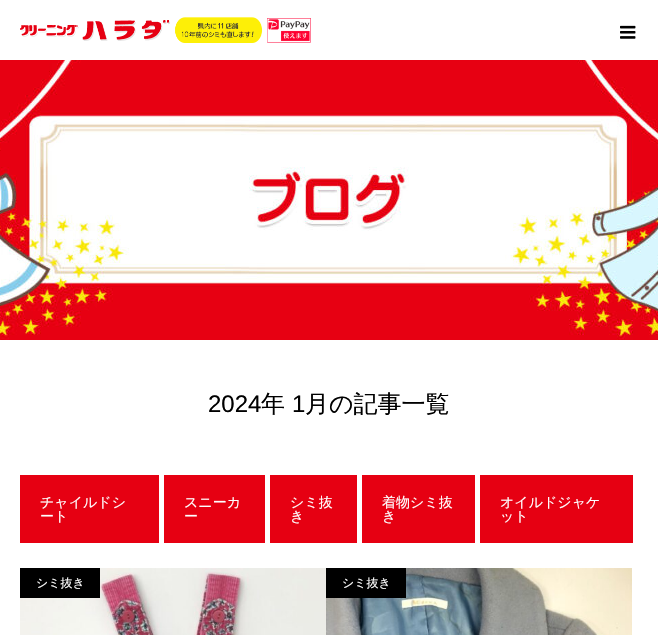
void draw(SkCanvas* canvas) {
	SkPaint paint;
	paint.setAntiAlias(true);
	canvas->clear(0xffffffff);
	canvas->drawImageRect(SkImages::DeferredFromEncodedData(SkData::MakeFromFileName("img1.png")), SkRect::MakeXYWH(20, 17, 291, 26), SkSamplingOptions());
	canvas->drawImageRect(SkImages::DeferredFromEncodedData(SkData::MakeFromFileName("img2.png")), SkRect::MakeXYWH(620, 25, 16, 14), SkSamplingOptions());
	canvas->drawImageRect(SkImages::DeferredFromEncodedData(SkData::MakeFromFileName("img3.png")), SkRect::MakeXYWH(0, 60, 658, 280), SkSamplingOptions());
	SkFont f1(fontMgr->matchFamilyStyle("Liberation Sans", SkFontStyle::Normal()), 24);
	f1.setSubpixel(true);
	paint.setColor(0xff000000);
	canvas->drawString("2024", 208, 412, f1, paint);
	SkFont f2(fontMgr->matchFamilyStyle("WenQuanYi Zen Hei", SkFontStyle(500, SkFontStyle::kNormal_Width, SkFontStyle::kUpright_Slant)), 24);
	f2.setSubpixel(true);
	canvas->drawString("年", 261, 412, f2, paint);
	canvas->drawString("1", 292, 412, f1, paint);
	canvas->drawString("月の記事一覧", 305, 412, f2, paint);
	paint.setColor(0xffe60012);
	canvas->drawRect(SkRect::MakeXYWH(20, 475, 139, 68), paint);
	SkFont f3(fontMgr->matchFamilyStyle("WenQuanYi Zen Hei", SkFontStyle(500, SkFontStyle::kNormal_Width, SkFontStyle::kUpright_Slant)), 14);
	f3.setSubpixel(true);
	paint.setColor(0xffffffff);
	canvas->drawString("チャイルドシ", 40, 507, f3, paint);
	canvas->drawString("ート", 40, 521, f3, paint);
	paint.setColor(0xffe60012);
	canvas->drawRect(SkRect::MakeXYWH(164, 475, 101, 68), paint);
	paint.setColor(0xffffffff);
	canvas->drawString("スニーカ", 184, 507, f3, paint);
	canvas->drawString("ー", 184, 521, f3, paint);
	paint.setColor(0xffe60012);
	canvas->drawRect(SkRect::MakeXYWH(270, 475, 87, 68), paint);
	paint.setColor(0xffffffff);
	canvas->drawString("シミ抜", 290, 507, f3, paint);
	canvas->drawString("き", 290, 521, f3, paint);
	paint.setColor(0xffe60012);
	canvas->drawRect(SkRect::MakeXYWH(362, 475, 113, 68), paint);
	paint.setColor(0xffffffff);
	canvas->drawString("着物シミ抜", 382, 507, f3, paint);
	canvas->drawString("き", 382, 521, f3, paint);
	paint.setColor(0xffe60012);
	canvas->drawRect(SkRect::MakeXYWH(480, 475, 153, 68), paint);
	paint.setColor(0xffffffff);
	canvas->drawString("オイルドジャケ", 500, 507, f3, paint);
	canvas->drawString("ット", 500, 521, f3, paint);
	canvas->drawImageRect(SkImages::DeferredFromEncodedData(SkData::MakeFromFileName("img4.png")), SkRect::MakeXYWH(20, 568, 306, 67), SkSamplingOptions());
	paint.setColor(0xff000000);
	canvas->drawRect(SkRect::MakeXYWH(20, 568, 80, 30), paint);
	SkFont f4(fontMgr->matchFamilyStyle("WenQuanYi Zen Hei", SkFontStyle(500, SkFontStyle::kNormal_Width, SkFontStyle::kUpright_Slant)), 12);
	f4.setSubpixel(true);
	paint.setColor(0xffffffff);
	canvas->drawString("シミ抜き", 36, 587, f4, paint);
	canvas->drawImageRect(SkImages::DeferredFromEncodedData(SkData::MakeFromFileName("img5.png")), SkRect::MakeXYWH(326, 568, 306, 67), SkSamplingOptions());
	paint.setColor(0xff000000);
	canvas->drawRect(SkRect::MakeXYWH(326, 568, 80, 30), paint);
	paint.setColor(0xffffffff);
	canvas->drawString("シミ抜き", 342, 587, f4, paint);
}
